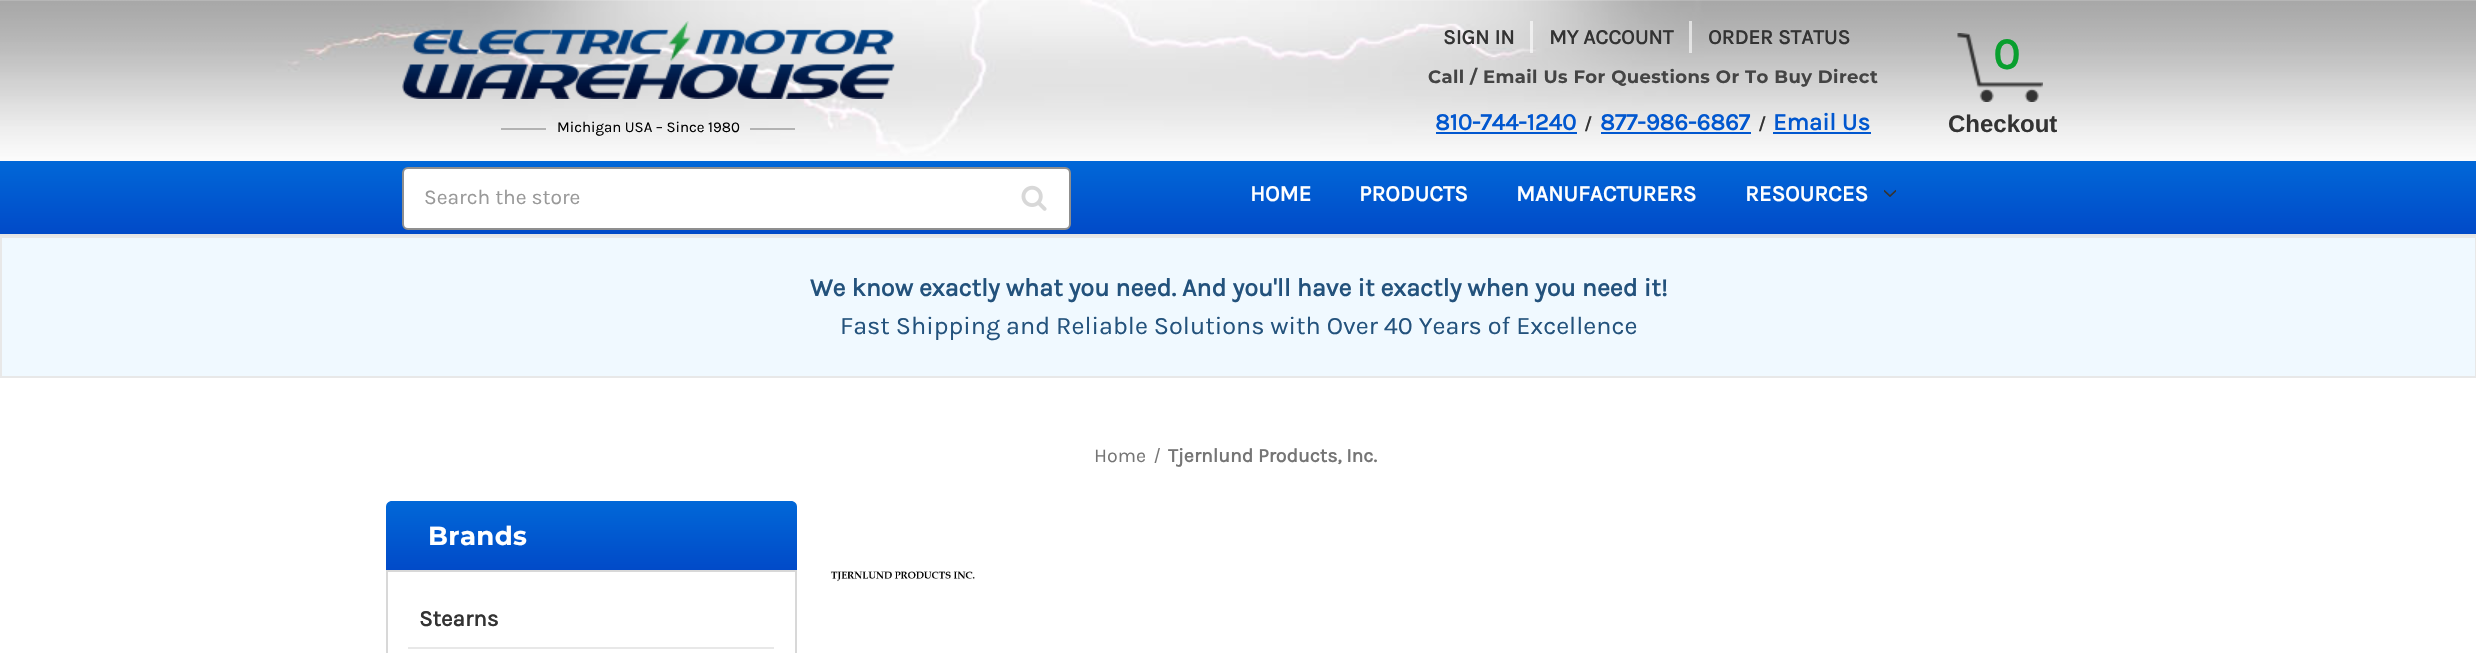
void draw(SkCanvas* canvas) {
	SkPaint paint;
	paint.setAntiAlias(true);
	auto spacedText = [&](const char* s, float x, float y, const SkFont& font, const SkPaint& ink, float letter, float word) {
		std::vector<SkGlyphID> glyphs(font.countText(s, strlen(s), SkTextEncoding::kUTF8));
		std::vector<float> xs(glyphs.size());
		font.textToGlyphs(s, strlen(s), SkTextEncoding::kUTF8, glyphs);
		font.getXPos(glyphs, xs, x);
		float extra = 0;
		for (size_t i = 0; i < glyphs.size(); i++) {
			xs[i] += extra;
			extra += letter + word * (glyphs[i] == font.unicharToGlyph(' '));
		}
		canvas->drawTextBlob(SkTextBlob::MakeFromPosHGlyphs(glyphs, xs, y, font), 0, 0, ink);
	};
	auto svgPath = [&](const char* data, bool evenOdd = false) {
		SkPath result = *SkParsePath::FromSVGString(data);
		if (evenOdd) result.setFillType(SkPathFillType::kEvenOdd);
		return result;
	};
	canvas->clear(0xffffffff);
	canvas->drawImageRect(SkImages::DeferredFromEncodedData(SkData::MakeFromFileName("img1.png")), SkRect::MakeXYWH(0, 0, 2476, 161), SkSamplingOptions());
	paint.setColor(0xffe5e5e5);
	canvas->drawRect(SkRect::MakeXYWH(0, 234, 2476, 2), paint);
	canvas->drawImageRect(SkImages::DeferredFromEncodedData(SkData::MakeFromFileName("img2.png")), SkRect::MakeXYWH(402, 21, 493, 78), SkSamplingOptions());
	paint.setColor(0xffb3b3b3);
	canvas->drawRect(SkRect::MakeXYWH(501, 128, 45, 2), paint);
	SkFont f1(fontMgr->matchFamilyStyle("Karla", SkFontStyle::Normal()), 15);
	f1.setSubpixel(true);
	paint.setColor(0xff000000);
	canvas->drawString("Michigan USA – Since 1980", 557, 132, f1, paint);
	paint.setColor(0xffb3b3b3);
	canvas->drawRect(SkRect::MakeXYWH(750, 128, 45, 2), paint);
	paint.setColor(0x99ffffff);
	canvas->drawRect(SkRect::MakeXYWH(1530, 21, 3, 32), paint);
	SkFont f2(fontMgr->matchFamilyStyle("Karla", SkFontStyle::Bold()), 21);
	f2.setSubpixel(true);
	paint.setColor(0xff333333);
	canvas->drawString("SIGN IN", 1443, 44, f2, paint);
	paint.setColor(0x99ffffff);
	canvas->drawRect(SkRect::MakeXYWH(1689, 21, 3, 32), paint);
	paint.setColor(0xff333333);
	canvas->drawString("MY ACCOUNT", 1549, 44, f2, paint);
	canvas->drawString("ORDER STATUS", 1708, 44, f2, paint);
	SkFont f3(fontMgr->matchFamilyStyle("Montserrat", SkFontStyle::Bold()), 18);
	f3.setSubpixel(true);
	paint.setColor(0xff444444);
	spacedText("Call / Email Us For Questions Or To Buy Direct", 1428, 83, f3, paint, 0.4, 0);
	SkFont f4(fontMgr->matchFamilyStyle("Karla", SkFontStyle::Bold()), 24);
	f4.setSubpixel(true);
	paint.setColor(0xff0157cf);
	canvas->drawString("810-744-1240", 1435, 130, f4, paint);
	canvas->drawRect(SkRect::MakeXYWH(1436, 132, 141, 2), paint);
	SkFont f5(fontMgr->matchFamilyStyle("Karla", SkFontStyle::Bold()), 18);
	f5.setSubpixel(true);
	paint.setColor(0xff333333);
	canvas->drawString("/", 1584, 130, f5, paint);
	paint.setColor(0xff0157cf);
	canvas->drawString("877-986-6867", 1600, 130, f4, paint);
	canvas->drawRect(SkRect::MakeXYWH(1601, 132, 150, 2), paint);
	paint.setColor(0xff333333);
	canvas->drawString("/", 1758, 130, f5, paint);
	paint.setColor(0xff0157cf);
	canvas->drawString("Email Us", 1773, 130, f4, paint);
	canvas->drawRect(SkRect::MakeXYWH(1773, 132, 98, 2), paint);
	canvas->drawImageRect(SkImages::DeferredFromEncodedData(SkData::MakeFromFileName("img3.png")), SkRect::MakeXYWH(1957, 33, 86, 69), SkSamplingOptions());
	SkFont f6(fontMgr->matchFamilyStyle("Karla", SkFontStyle::Bold()), 45);
	f6.setSubpixel(true);
	paint.setColor(0xff099f2e);
	canvas->drawString("0", 1993, 69, f6, paint);
	SkFont f7(fontMgr->matchFamilyStyle("Liberation Sans", SkFontStyle::Bold()), 24);
	f7.setSubpixel(true);
	paint.setColor(0xff333333);
	canvas->drawString("Checkout", 1948, 132, f7, paint);
	{
		const SkColor colors[] = {0xff0168d8, 0xff014ac8};
		const float stops[] = {0, 1};
		const SkPoint ends[] = {{1238, 160}, {1238, 234}};
		paint.setShader(SkGradientShader::MakeLinear(ends, colors, stops, 2, SkTileMode::kClamp));
		paint.setAlpha(255);
	}
	canvas->drawRect(SkRect::MakeXYWH(0, 161, 2476, 73), paint);
	paint.setShader(nullptr);
	paint.setColor(0xffffffff);
	canvas->drawRoundRect(SkRect::MakeXYWH(403, 168, 667, 61), 5, 5, paint);
	paint.setStroke(true);
	paint.setStrokeWidth(2);
	paint.setColor(0xff8f8f8f);
	canvas->drawRoundRect(SkRect::MakeXYWH(403, 168, 667, 61), 5, 5, paint);
	SkFont f8(fontMgr->matchFamilyStyle("Karla", SkFontStyle::Normal()), 21);
	f8.setSubpixel(true);
	paint.setStroke(false);
	paint.setColor(0xff999999);
	canvas->drawString("Search the store", 424, 204, f8, paint);
	canvas->drawImageRect(SkImages::DeferredFromEncodedData(SkData::MakeFromFileName("img4.png")), SkRect::MakeXYWH(1021, 185, 26, 26), SkSamplingOptions());
	SkFont f9(fontMgr->matchFamilyStyle("Karla", SkFontStyle::Bold()), 22.5);
	f9.setSubpixel(true);
	paint.setColor(0xffffffff);
	canvas->drawString("HOME", 1250, 201, f9, paint);
	canvas->drawString("PRODUCTS", 1359, 201, f9, paint);
	canvas->drawString("MANUFACTURERS", 1516, 201, f9, paint);
	canvas->drawString("RESOURCES", 1745, 201, f9, paint);
	canvas->drawImageRect(SkImages::DeferredFromEncodedData(SkData::MakeFromFileName("img5.png")), SkRect::MakeXYWH(1884, 189, 12, 8), SkSamplingOptions());
	paint.setColor(0xfff0f9ff);
	canvas->drawRect(SkRect::MakeXYWH(1, 237, 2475, 140), paint);
	paint.setStroke(true);
	paint.setColor(0xffe8e8e8);
	canvas->drawRect(SkRect::MakeXYWH(1, 237, 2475, 140), paint);
	SkFont f10(fontMgr->matchFamilyStyle("Karla", SkFontStyle::Bold()), 25.2);
	f10.setSubpixel(true);
	paint.setStroke(false);
	paint.setColor(0xff23527c);
	canvas->drawString("We know exactly what you need. And you'll have it exactly when you need it!", 810, 296, f10, paint);
	SkFont f11(fontMgr->matchFamilyStyle("Karla", SkFontStyle::Normal()), 25.2);
	f11.setSubpixel(true);
	canvas->drawString("Fast Shipping and Reliable Solutions with Over 40 Years of Excellence", 840, 334, f11, paint);
	SkFont f12(fontMgr->matchFamilyStyle("Karla", SkFontStyle::Normal()), 19.5);
	f12.setSubpixel(true);
	paint.setColor(0xff757575);
	canvas->drawString("Home", 1094, 462, f12, paint);
	canvas->drawPath(svgPath("M1158.5 448H1160L1156 463H1154.5Z"), paint);
	SkFont f13(fontMgr->matchFamilyStyle("Karla", SkFontStyle::Bold()), 19.5);
	f13.setSubpixel(true);
	canvas->drawString("Tjernlund Products, Inc.", 1168, 462, f13, paint);
	{
		const SkColor colors[] = {0xff0168d8, 0xff014ac8};
		const float stops[] = {0, 1};
		const SkPoint ends[] = {{591, 501}, {591, 570}};
		paint.setShader(SkGradientShader::MakeLinear(ends, colors, stops, 2, SkTileMode::kClamp));
		paint.setAlpha(255);
	}
	canvas->drawPath(svgPath("M392 501H791C794.5 501 797 503.5 797 507V570H386V507C386 503.5 388.5 501 392 501Z"), paint);
	SkFont f14(fontMgr->matchFamilyStyle("Montserrat", SkFontStyle::Bold()), 26);
	f14.setSubpixel(true);
	paint.setShader(nullptr);
	paint.setColor(0xffffffff);
	spacedText("Brands", 428, 545, f14, paint, 0.4, 0);
	paint.setStroke(true);
	paint.setColor(0xffd8d8d8);
	canvas->drawRect(SkRect::MakeXYWH(387, 571, 409, 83), paint);
	paint.setStroke(false);
	paint.setColor(0xffe8e8e8);
	canvas->drawRect(SkRect::MakeXYWH(408, 647, 366, 2), paint);
	paint.setColor(0xff333333);
	canvas->drawString("Stearns", 419, 626, f9, paint);
	canvas->drawImageRect(SkImages::DeferredFromEncodedData(SkData::MakeFromFileName("img6.png")), SkRect::MakeXYWH(830, 571, 145, 11), SkSamplingOptions());
}
